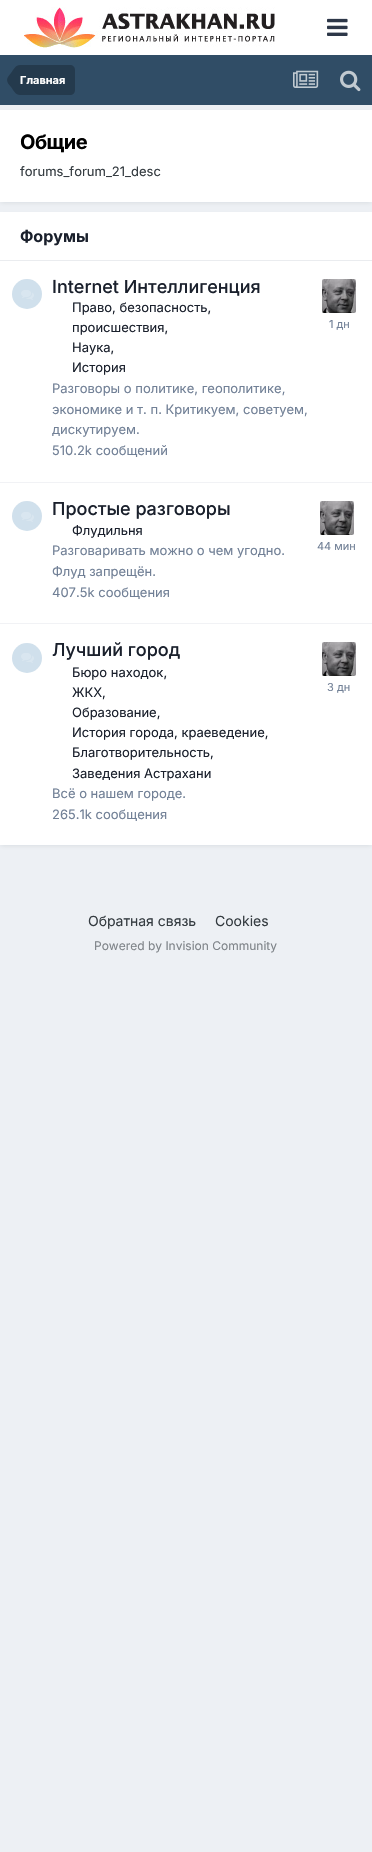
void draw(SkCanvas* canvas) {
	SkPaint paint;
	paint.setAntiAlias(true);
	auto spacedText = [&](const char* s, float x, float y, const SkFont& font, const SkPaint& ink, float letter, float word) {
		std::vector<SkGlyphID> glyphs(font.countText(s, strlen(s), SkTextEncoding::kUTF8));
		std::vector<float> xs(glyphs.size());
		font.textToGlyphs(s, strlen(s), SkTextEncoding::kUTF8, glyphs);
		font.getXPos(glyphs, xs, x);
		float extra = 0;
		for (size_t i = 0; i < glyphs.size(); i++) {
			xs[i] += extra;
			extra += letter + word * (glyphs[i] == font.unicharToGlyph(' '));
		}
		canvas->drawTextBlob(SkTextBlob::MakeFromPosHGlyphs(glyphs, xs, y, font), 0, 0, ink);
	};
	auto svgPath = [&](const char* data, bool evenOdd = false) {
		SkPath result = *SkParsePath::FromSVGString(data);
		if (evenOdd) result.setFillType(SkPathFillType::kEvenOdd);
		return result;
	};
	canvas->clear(0xffedf0f4);
	paint.setColor(0xffffffff);
	canvas->drawRect(SkRect::MakeXYWH(0, 0, 372, 55), paint);
	canvas->drawImageRect(SkImages::DeferredFromEncodedData(SkData::MakeFromFileName("img1.png")), SkRect::MakeXYWH(24, 7, 251, 41), SkSamplingOptions());
	canvas->drawImageRect(SkImages::DeferredFromEncodedData(SkData::MakeFromFileName("img2.png")), SkRect::MakeXYWH(327, 18, 21, 18), SkSamplingOptions());
	paint.setColor(0xff304d66);
	canvas->drawRect(SkRect::MakeXYWH(0, 55, 372, 50), paint);
	paint.setColor(0xff243a4d);
	canvas->drawPath(svgPath("M20 65H70C73 65 75 67 75 70V90C75 93 73 95 70 95H20Z"), paint);
	canvas->drawPath(svgPath("M20 80V95C15.5 95 13.5 90.5 11 87C9.5 85 7 83 7 80ZM20 80H7C7 77 9.5 75 11 73C13.5 69.5 15.5 65 20 65Z"), paint);
	SkFont f1(fontMgr->matchFamilyStyle("Inter", SkFontStyle::Bold()), 11);
	f1.setSubpixel(true);
	paint.setColor(0xffffffff);
	canvas->drawString("Главная", 20, 84, f1, paint);
	canvas->drawImageRect(SkImages::DeferredFromEncodedData(SkData::MakeFromFileName("img3.png")), SkRect::MakeXYWH(293, 70, 26, 18), SkSamplingOptions());
	canvas->drawImageRect(SkImages::DeferredFromEncodedData(SkData::MakeFromFileName("img4.png")), SkRect::MakeXYWH(340, 70, 21, 22), SkSamplingOptions());
	paint.setColor(0x1a2d3748);
	paint.setMaskFilter(SkMaskFilter::MakeBlur(kNormal_SkBlurStyle, 2));
	canvas->drawRect(SkRect::MakeXYWH(1, 113, 370, 90), paint);
	paint.setMaskFilter(nullptr);
	paint.setColor(0xffffffff);
	canvas->drawRect(SkRect::MakeXYWH(0, 110, 372, 92), paint);
	SkFont f2(fontMgr->matchFamilyStyle("Inter", SkFontStyle::Bold()), 20);
	f2.setSubpixel(true);
	paint.setColor(0xff000000);
	spacedText("Общие", 20, 149, f2, paint, -0.5, 0);
	SkFont f3(fontMgr->matchFamilyStyle("Inter", SkFontStyle::Normal()), 13);
	f3.setSubpixel(true);
	paint.setColor(0xff353c41);
	canvas->drawString("forums_forum_21_desc", 20, 176, f3, paint);
	paint.setColor(0x1a2d3748);
	paint.setMaskFilter(SkMaskFilter::MakeBlur(kNormal_SkBlurStyle, 2));
	canvas->drawRect(SkRect::MakeXYWH(1, 215, 370, 631), paint);
	paint.setMaskFilter(nullptr);
	paint.setColor(0xffffffff);
	canvas->drawRect(SkRect::MakeXYWH(0, 212, 372, 633), paint);
	paint.setColor(0xffeaecef);
	canvas->drawRect(SkRect::MakeXYWH(0, 260, 372, 1), paint);
	SkFont f4(fontMgr->matchFamilyStyle("Inter", SkFontStyle::Bold()), 16);
	f4.setSubpixel(true);
	paint.setColor(0xff1a202c);
	canvas->drawString("Форумы", 20, 242, f4, paint);
	paint.setColor(0xfff1f2f5);
	canvas->drawRect(SkRect::MakeXYWH(0, 482, 372, 1), paint);
	paint.setColor(0xffd0e0ec);
	canvas->drawCircle(27, 294, 15, paint);
	canvas->drawImageRect(SkImages::DeferredFromEncodedData(SkData::MakeFromFileName("img5.png")), SkRect::MakeXYWH(21, 290, 13, 10), SkSamplingOptions());
	SkFont f5(fontMgr->matchFamilyStyle("Inter", SkFontStyle(500, SkFontStyle::kNormal_Width, SkFontStyle::kUpright_Slant)), 18);
	f5.setSubpixel(true);
	paint.setColor(0xff1a202c);
	canvas->drawString("Internet Интеллигенция", 52, 293, f5, paint);
	canvas->drawString("Право, безопасность,", 72, 312, f3, paint);
	canvas->drawString("происшествия,", 72, 332, f3, paint);
	canvas->drawString("Наука,", 72, 352, f3, paint);
	canvas->drawString("История", 72, 372, f3, paint);
	paint.setColor(0xff718096);
	canvas->drawString("Разговоры о политике, геополитике,", 52, 393, f3, paint);
	canvas->drawString("экономике и т. п. Критикуем, советуем,", 52, 414, f3, paint);
	canvas->drawString("дискутируем.", 52, 434, f3, paint);
	canvas->drawImageRect(SkImages::DeferredFromEncodedData(SkData::MakeFromFileName("img6.png")), SkRect::MakeXYWH(322, 279, 34, 34), SkSamplingOptions());
	SkFont f6(fontMgr->matchFamilyStyle("Inter", SkFontStyle::Normal()), 11);
	f6.setSubpixel(true);
	canvas->drawString("1 дн", 329, 328, f6, paint);
	canvas->drawString("510.2k сообщений", 52, 455, f3, paint);
	paint.setColor(0xfff1f2f5);
	canvas->drawRect(SkRect::MakeXYWH(0, 623, 372, 1), paint);
	paint.setColor(0xffd0e0ec);
	canvas->drawCircle(27, 516, 15, paint);
	canvas->drawImageRect(SkImages::DeferredFromEncodedData(SkData::MakeFromFileName("img5.png")), SkRect::MakeXYWH(21, 512, 13, 10), SkSamplingOptions());
	paint.setColor(0xff1a202c);
	canvas->drawString("Простые разговоры", 52, 515, f5, paint);
	canvas->drawString("Флудильня", 72, 535, f3, paint);
	paint.setColor(0xff718096);
	canvas->drawString("Разговаривать можно о чем угодно.", 52, 555, f3, paint);
	canvas->drawString("Флуд запрещён.", 52, 576, f3, paint);
	canvas->drawImageRect(SkImages::DeferredFromEncodedData(SkData::MakeFromFileName("img6.png")), SkRect::MakeXYWH(320, 501, 34, 34), SkSamplingOptions());
	canvas->drawString("44 мин", 317, 550, f6, paint);
	canvas->drawString("407.5k сообщения", 52, 597, f3, paint);
	paint.setColor(0xffd0e0ec);
	canvas->drawCircle(27, 658, 15, paint);
	canvas->drawImageRect(SkImages::DeferredFromEncodedData(SkData::MakeFromFileName("img5.png")), SkRect::MakeXYWH(21, 653, 13, 10), SkSamplingOptions());
	paint.setColor(0xff1a202c);
	canvas->drawString("Лучший город", 52, 656, f5, paint);
	canvas->drawString("Бюро находок,", 72, 677, f3, paint);
	canvas->drawString("ЖКХ,", 72, 697, f3, paint);
	canvas->drawString("Образование,", 72, 717, f3, paint);
	canvas->drawString("История города, краеведение,", 72, 737, f3, paint);
	canvas->drawString("Благотворительность,", 72, 757, f3, paint);
	canvas->drawString("Заведения Астрахани", 72, 778, f3, paint);
	paint.setColor(0xff718096);
	canvas->drawString("Всё о нашем городе.", 52, 798, f3, paint);
	canvas->drawImageRect(SkImages::DeferredFromEncodedData(SkData::MakeFromFileName("img6.png")), SkRect::MakeXYWH(322, 642, 34, 34), SkSamplingOptions());
	canvas->drawString("3 дн", 327, 691, f6, paint);
	canvas->drawString("265.1k сообщения", 52, 819, f3, paint);
	SkFont f7(fontMgr->matchFamilyStyle("Inter", SkFontStyle::Normal()), 14);
	f7.setSubpixel(true);
	paint.setColor(0xff353c41);
	canvas->drawString("Обратная связь", 88, 926, f7, paint);
	canvas->drawString("Cookies", 215, 926, f7, paint);
	SkFont f8(fontMgr->matchFamilyStyle("Inter", SkFontStyle::Normal()), 12);
	f8.setSubpixel(true);
	paint.setColor(0xff7f8489);
	canvas->drawString("Powered by Invision Community", 94, 950, f8, paint);
}
